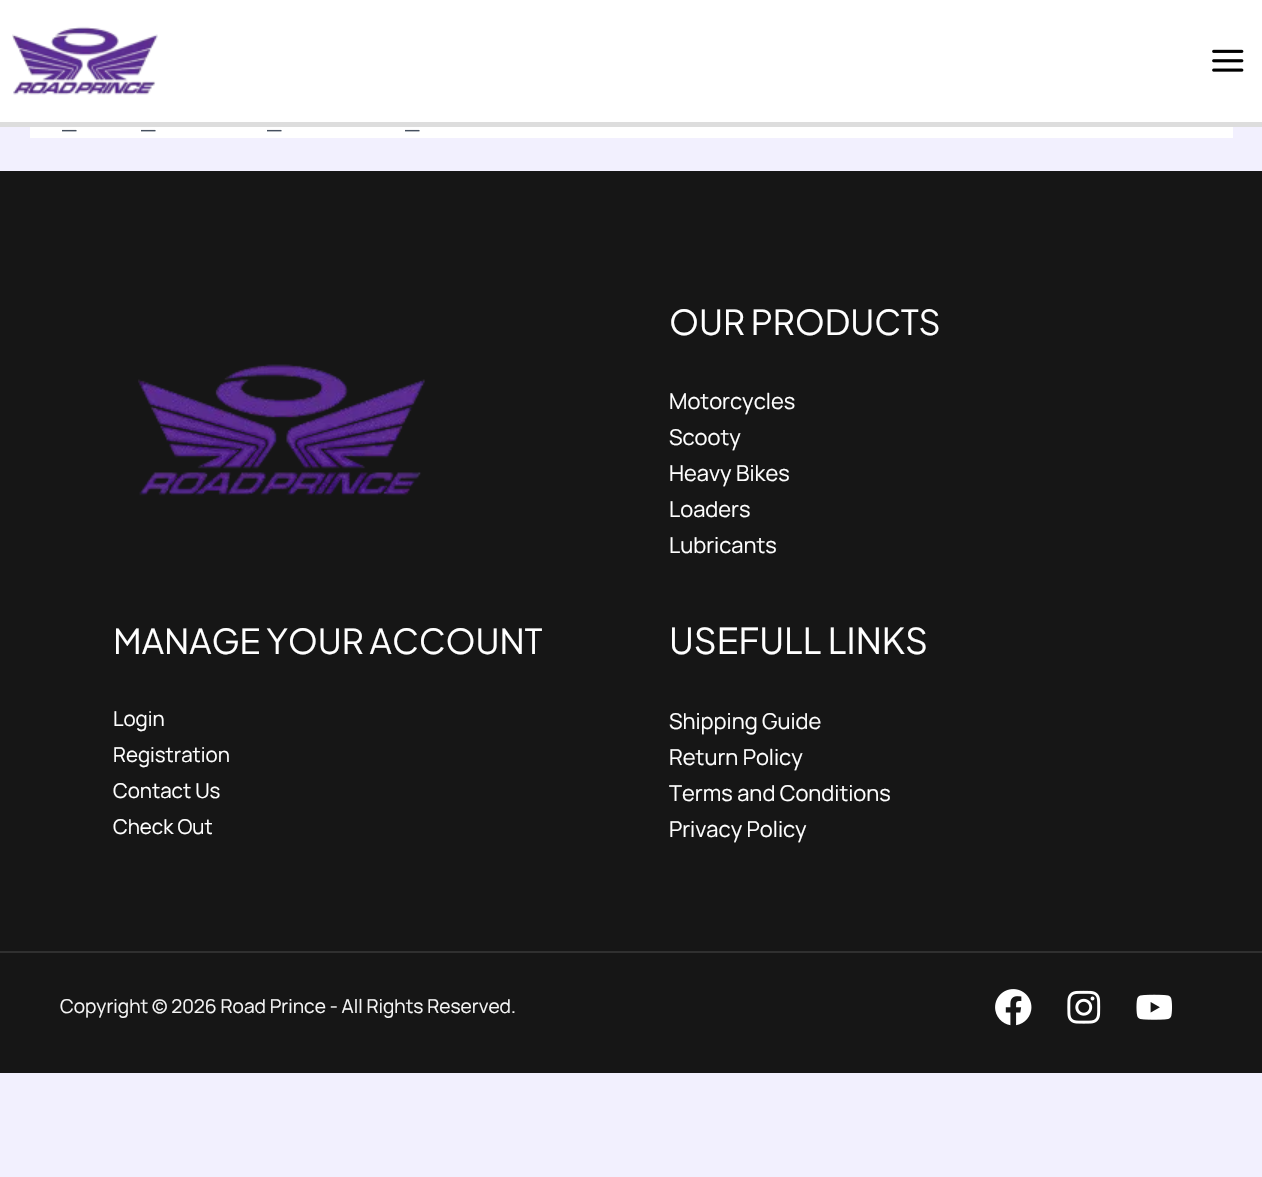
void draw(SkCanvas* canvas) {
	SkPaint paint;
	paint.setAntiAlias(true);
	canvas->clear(0xfff2f0fe);
	paint.setColor(0xffffffff);
	canvas->drawRect(SkRect::MakeXYWH(0, 0, 1262, 122), paint);
	paint.setColor(0xffdddddd);
	canvas->drawRect(SkRect::MakeXYWH(0, 122, 1262, 5), paint);
	canvas->drawImageRect(SkImages::DeferredFromEncodedData(SkData::MakeFromFileName("img1.png")), SkRect::MakeXYWH(12, 26, 146, 69), SkSamplingOptions());
	canvas->drawImageRect(SkImages::DeferredFromEncodedData(SkData::MakeFromFileName("img2.png")), SkRect::MakeXYWH(1212, 49, 32, 23), SkSamplingOptions());
	paint.setColor(0xffffffff);
	canvas->drawRect(SkRect::MakeXYWH(30, 127, 1203, 11), paint);
	SkFont f1(fontMgr->matchFamilyStyle("Manrope", SkFontStyle(200, SkFontStyle::kNormal_Width, SkFontStyle::kUpright_Slant)), 21.9);
	f1.setSubpixel(true);
	paint.setColor(0xff454f5e);
	canvas->drawString("_", 62, 129, f1, paint);
	canvas->drawString("_", 141, 129, f1, paint);
	canvas->drawString("_", 267, 129, f1, paint);
	canvas->drawString("_", 405, 129, f1, paint);
	paint.setColor(0xff161616);
	canvas->drawRect(SkRect::MakeXYWH(0, 171, 1262, 780), paint);
	canvas->drawImageRect(SkImages::DeferredFromEncodedData(SkData::MakeFromFileName("img3.png")), SkRect::MakeXYWH(138, 364, 287, 132), SkSamplingOptions());
	SkFont f2(fontMgr->matchFamilyStyle("Plus Jakarta Sans", SkFontStyle::Normal()), 34.25);
	f2.setSubpixel(true);
	paint.setColor(0xffffffff);
	canvas->drawString("OUR PRODUCTS", 669, 335, f2, paint);
	canvas->drawString("Motorcycles", 669, 409, f1, paint);
	canvas->drawString("Scooty", 669, 445, f1, paint);
	canvas->drawString("Heavy Bikes", 669, 481, f1, paint);
	canvas->drawString("Loaders", 669, 517, f1, paint);
	canvas->drawString("Lubricants", 669, 553, f1, paint);
	canvas->drawString("MANAGE YOUR ACCOUNT", 113, 654, f2, paint);
	SkFont f3(fontMgr->matchFamilyStyle("Manrope", SkFontStyle(200, SkFontStyle::kNormal_Width, SkFontStyle::kUpright_Slant)), 20.5);
	f3.setSubpixel(true);
	canvas->drawString("Login", 113, 726, f3, paint);
	canvas->drawString("Registration", 113, 762, f3, paint);
	canvas->drawString("Contact Us", 113, 798, f3, paint);
	canvas->drawString("Check Out", 113, 834, f3, paint);
	SkFont f4(fontMgr->matchFamilyStyle("Plus Jakarta Sans", SkFontStyle::Normal()), 35.5);
	f4.setSubpixel(true);
	canvas->drawString("USEFULL LINKS", 669, 654, f4, paint);
	canvas->drawString("Shipping Guide", 669, 729, f1, paint);
	canvas->drawString("Return Policy", 669, 765, f1, paint);
	canvas->drawString("Terms and Conditions", 669, 801, f1, paint);
	canvas->drawString("Privacy Policy", 669, 837, f1, paint);
	paint.setColor(0xff161616);
	canvas->drawRect(SkRect::MakeXYWH(0, 953, 1262, 120), paint);
	paint.setColor(0xff303030);
	canvas->drawRect(SkRect::MakeXYWH(0, 951, 1262, 2), paint);
	SkFont f5(fontMgr->matchFamilyStyle("Manrope", SkFontStyle(200, SkFontStyle::kNormal_Width, SkFontStyle::kUpright_Slant)), 19.15);
	f5.setSubpixel(true);
	paint.setColor(0xfff5f5f5);
	canvas->drawString("Copyright © 2026 Road Prince - All Rights Reserved.", 60, 1013, f5, paint);
	canvas->drawImageRect(SkImages::DeferredFromEncodedData(SkData::MakeFromFileName("img4.png")), SkRect::MakeXYWH(995, 989, 37, 37), SkSamplingOptions());
	canvas->drawImageRect(SkImages::DeferredFromEncodedData(SkData::MakeFromFileName("img5.png")), SkRect::MakeXYWH(1067, 990, 34, 34), SkSamplingOptions());
	canvas->drawImageRect(SkImages::DeferredFromEncodedData(SkData::MakeFromFileName("img6.png")), SkRect::MakeXYWH(1136, 994, 36, 26), SkSamplingOptions());
}
